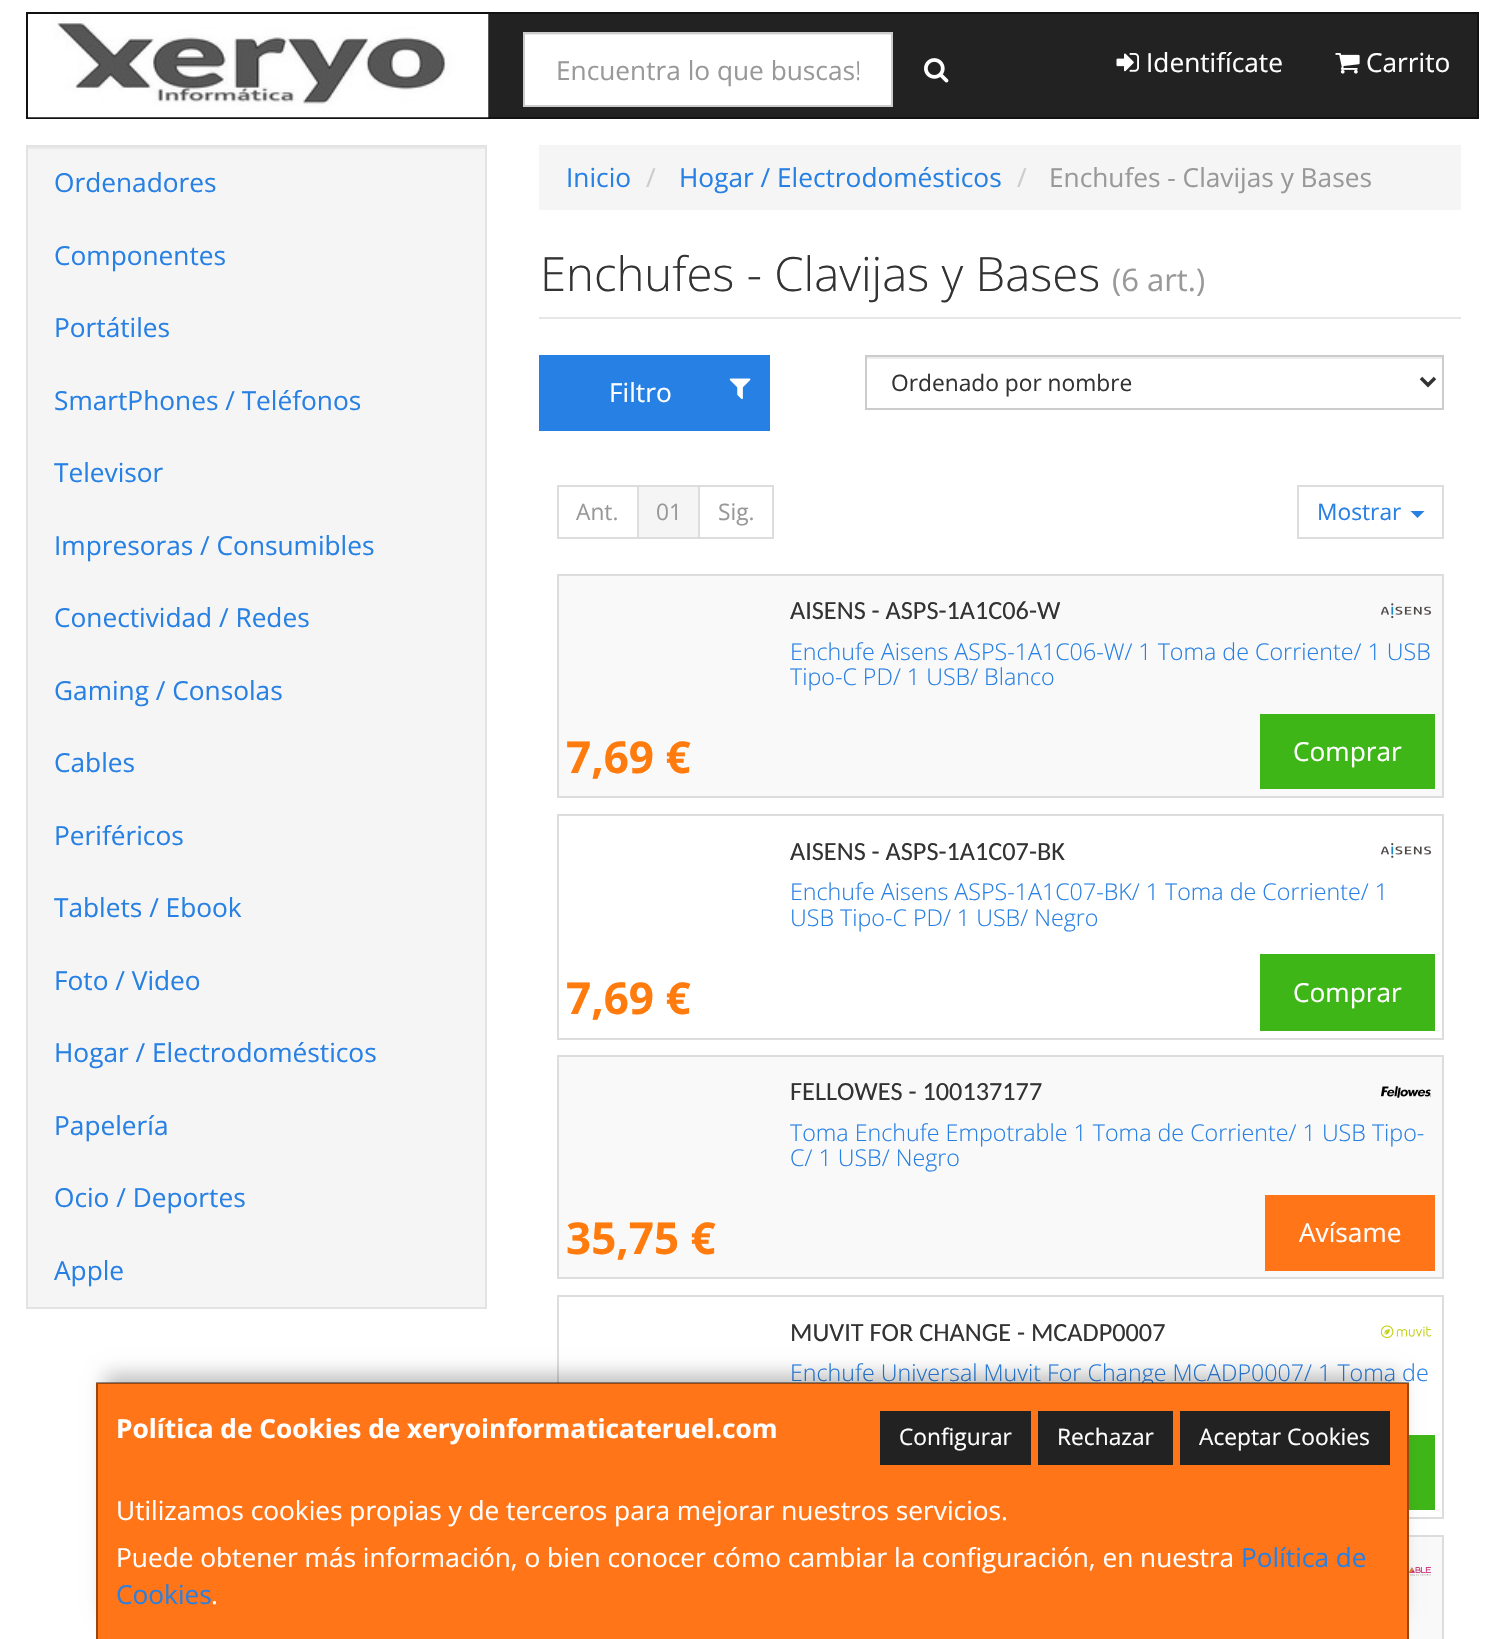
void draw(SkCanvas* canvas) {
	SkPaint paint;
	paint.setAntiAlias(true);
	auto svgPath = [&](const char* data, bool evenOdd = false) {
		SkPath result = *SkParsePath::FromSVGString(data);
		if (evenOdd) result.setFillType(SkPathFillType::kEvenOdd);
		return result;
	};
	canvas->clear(0xffffffff);
	paint.setColor(0xff222222);
	canvas->drawRect(SkRect::MakeXYWH(488, 14, 989, 103), paint);
	paint.setStroke(true);
	paint.setStrokeWidth(2);
	paint.setColor(0xff121212);
	canvas->drawRect(SkRect::MakeXYWH(27, 13, 1451, 105), paint);
	canvas->drawImageRect(SkImages::DeferredFromEncodedData(SkData::MakeFromFileName("img1.png")), SkRect::MakeXYWH(28, 14, 461, 104), SkSamplingOptions());
	paint.setStroke(false);
	paint.setColor(0xffffffff);
	canvas->drawRect(SkRect::MakeXYWH(525, 35, 366, 70), paint);
	paint.setColor(0xffececec);
	canvas->drawRect(SkRect::MakeXYWH(525, 34, 366, 1), paint);
	paint.setStroke(true);
	paint.setColor(0xffcccccc);
	canvas->drawRect(SkRect::MakeXYWH(524, 33, 368, 73), paint);
	canvas->save();
	canvas->clipRect(SkRect::MakeXYWH(557, 53, 302, 35));
	SkFont f1(fontMgr->matchFamilyStyle("Open Sans", SkFontStyle::Normal()), 26.25);
	f1.setSubpixel(true);
	paint.setStroke(false);
	paint.setColor(0xff999999);
	canvas->drawString("Encuentra lo que buscas!", 556, 80, f1, paint);
	canvas->restore();
	canvas->drawImageRect(SkImages::DeferredFromEncodedData(SkData::MakeFromFileName("img2.png")), SkRect::MakeXYWH(924, 58, 25, 25), SkSamplingOptions());
	canvas->drawImageRect(SkImages::DeferredFromEncodedData(SkData::MakeFromFileName("img3.png")), SkRect::MakeXYWH(1116, 53, 23, 19), SkSamplingOptions());
	paint.setColor(0xffffffff);
	canvas->drawString("Identifícate", 1146, 72, f1, paint);
	canvas->drawImageRect(SkImages::DeferredFromEncodedData(SkData::MakeFromFileName("img4.png")), SkRect::MakeXYWH(1335, 53, 25, 21), SkSamplingOptions());
	canvas->drawString("Carrito", 1366, 72, f1, paint);
	paint.setColor(0xfff5f5f5);
	canvas->drawRect(SkRect::MakeXYWH(28, 149, 457, 1158), paint);
	paint.setColor(0xffe9e9e9);
	canvas->drawRect(SkRect::MakeXYWH(28, 147, 457, 2), paint);
	paint.setStroke(true);
	paint.setColor(0xffe3e3e3);
	canvas->drawRect(SkRect::MakeXYWH(27, 146, 459, 1162), paint);
	paint.setStroke(false);
	paint.setColor(0xff2780e3);
	canvas->drawString("Ordenadores", 54, 192, f1, paint);
	canvas->drawString("Componentes", 54, 265, f1, paint);
	canvas->drawString("Portátiles", 54, 337, f1, paint);
	canvas->drawString("SmartPhones / Teléfonos", 54, 410, f1, paint);
	canvas->drawString("Televisor", 54, 482, f1, paint);
	canvas->drawString("Impresoras / Consumibles", 54, 555, f1, paint);
	canvas->drawString("Conectividad / Redes", 54, 627, f1, paint);
	canvas->drawString("Gaming / Consolas", 54, 700, f1, paint);
	canvas->drawString("Cables", 54, 772, f1, paint);
	canvas->drawString("Periféricos", 54, 845, f1, paint);
	canvas->drawString("Tablets / Ebook", 54, 917, f1, paint);
	canvas->drawString("Foto / Video", 54, 990, f1, paint);
	canvas->drawString("Hogar / Electrodomésticos", 54, 1062, f1, paint);
	canvas->drawString("Papelería", 54, 1135, f1, paint);
	canvas->drawString("Ocio / Deportes", 54, 1207, f1, paint);
	canvas->drawString("Apple", 54, 1280, f1, paint);
	paint.setColor(0xfff5f5f5);
	canvas->drawRect(SkRect::MakeXYWH(539, 145, 922, 65), paint);
	paint.setColor(0xff2780e3);
	canvas->drawString("Inicio", 566, 187, f1, paint);
	paint.setColor(0xffcccccc);
	canvas->drawString("/", 646, 187, f1, paint);
	paint.setColor(0xff2780e3);
	canvas->drawString("Hogar / Electrodomésticos", 679, 187, f1, paint);
	paint.setColor(0xffcccccc);
	canvas->drawString("/", 1017, 187, f1, paint);
	paint.setColor(0xff999999);
	canvas->drawString("Enchufes - Clavijas y Bases", 1049, 187, f1, paint);
	paint.setColor(0xffe6e6e6);
	canvas->drawRect(SkRect::MakeXYWH(539, 317, 922, 2), paint);
	SkFont f2(fontMgr->matchFamilyStyle("Open Sans", SkFontStyle(300, SkFontStyle::kNormal_Width, SkFontStyle::kUpright_Slant)), 47.25);
	f2.setSubpixel(true);
	paint.setColor(0xff333333);
	canvas->drawString("Enchufes - Clavijas y Bases", 540, 291, f2, paint);
	SkFont f3(fontMgr->matchFamilyStyle("Open Sans", SkFontStyle::Normal()), 31);
	f3.setSubpixel(true);
	paint.setColor(0xff999999);
	canvas->drawString("(6 art.)", 1112, 291, f3, paint);
	paint.setColor(0xff2780e3);
	canvas->drawRect(SkRect::MakeXYWH(539, 355, 231, 76), paint);
	paint.setColor(0xffffffff);
	canvas->drawString("Filtro", 609, 402, f1, paint);
	canvas->drawImageRect(SkImages::DeferredFromEncodedData(SkData::MakeFromFileName("img5.png")), SkRect::MakeXYWH(729, 378, 22, 22), SkSamplingOptions());
	paint.setColor(0xffececec);
	canvas->drawRect(SkRect::MakeXYWH(866, 357, 576, 2), paint);
	paint.setStroke(true);
	paint.setColor(0xffcccccc);
	canvas->drawRect(SkRect::MakeXYWH(866, 356, 577, 53), paint);
	paint.setStrokeWidth(3.5);
	paint.setColor(0xff333333);
	canvas->drawPath(svgPath("M1421 378L1428 385L1435 378"), paint);
	SkFont f4(fontMgr->matchFamilyStyle("Open Sans", SkFontStyle::Normal()), 22.75);
	f4.setSubpixel(true);
	paint.setStroke(false);
	canvas->drawString("Ordenado por nombre", 891, 391, f4, paint);
	paint.setStroke(true);
	paint.setStrokeWidth(2);
	paint.setColor(0xffdddddd);
	canvas->drawRect(SkRect::MakeXYWH(558, 486, 80, 52), paint);
	paint.setStroke(false);
	paint.setColor(0xff999999);
	canvas->drawString("Ant.", 576, 520, f4, paint);
	paint.setStroke(true);
	paint.setColor(0xffdddddd);
	canvas->drawRect(SkRect::MakeXYWH(699, 486, 74, 52), paint);
	paint.setStroke(false);
	paint.setColor(0xfff5f5f5);
	canvas->drawRect(SkRect::MakeXYWH(638, 486, 61, 52), paint);
	paint.setStroke(true);
	paint.setColor(0xffdddddd);
	canvas->drawRect(SkRect::MakeXYWH(638, 486, 61, 52), paint);
	paint.setStroke(false);
	paint.setColor(0xff999999);
	canvas->drawString("01", 656, 520, f4, paint);
	canvas->drawString("Sig.", 718, 520, f4, paint);
	paint.setStroke(true);
	paint.setColor(0xffdddddd);
	canvas->drawRect(SkRect::MakeXYWH(1298, 486, 145, 52), paint);
	paint.setStroke(false);
	paint.setColor(0xff2780e3);
	canvas->drawString("Mostrar", 1317, 520, f4, paint);
	canvas->drawPath(svgPath("M1410.5 511H1424.5L1417.5 518Z"), paint);
	paint.setColor(0xfff9f9f9);
	canvas->drawRect(SkRect::MakeXYWH(558, 575, 885, 222), paint);
	paint.setStroke(true);
	paint.setColor(0xffdddddd);
	canvas->drawRect(SkRect::MakeXYWH(558, 575, 885, 222), paint);
	SkFont f5(fontMgr->matchFamilyStyle("Carlito", SkFontStyle::Normal()), 26.25);
	f5.setSubpixel(true);
	paint.setStroke(false);
	paint.setColor(0xff333333);
	canvas->drawString("AISENS - ASPS-1A1C06-W", 790, 619, f5, paint);
	SkFont f6(fontMgr->matchFamilyStyle("Open Sans", SkFontStyle(300, SkFontStyle::kNormal_Width, SkFontStyle::kUpright_Slant)), 23.25);
	f6.setSubpixel(true);
	paint.setColor(0xff2780e3);
	canvas->drawString("Enchufe Aisens ASPS-1A1C06-W/ 1 Toma de Corriente/ 1 USB", 790, 660, f6, paint);
	canvas->drawString("Tipo-C PD/ 1 USB/ Blanco", 790, 685, f6, paint);
	SkFont f7(fontMgr->matchFamilyStyle("Open Sans", SkFontStyle::Bold()), 44);
	f7.setSubpixel(true);
	paint.setColor(0xffff7b0d);
	canvas->drawString("7,69 €", 566, 773, f7, paint);
	paint.setColor(0xff3fb618);
	canvas->drawRect(SkRect::MakeXYWH(1260, 714, 175, 75), paint);
	paint.setColor(0xffffffff);
	canvas->drawString("Comprar", 1293, 761, f1, paint);
	canvas->drawImageRect(SkImages::DeferredFromEncodedData(SkData::MakeFromFileName("img6.png")), SkRect::MakeXYWH(1381, 603, 50, 16), SkSamplingOptions());
	paint.setStroke(true);
	paint.setColor(0xffdddddd);
	canvas->drawRect(SkRect::MakeXYWH(558, 815, 885, 224), paint);
	paint.setStroke(false);
	paint.setColor(0xff333333);
	canvas->drawString("AISENS - ASPS-1A1C07-BK", 790, 860, f5, paint);
	paint.setColor(0xff2780e3);
	canvas->drawString("Enchufe Aisens ASPS-1A1C07-BK/ 1 Toma de Corriente/ 1", 790, 900, f6, paint);
	canvas->drawString("USB Tipo-C PD/ 1 USB/ Negro", 790, 926, f6, paint);
	paint.setColor(0xffff7b0d);
	canvas->drawString("7,69 €", 566, 1014, f7, paint);
	paint.setColor(0xff3fb618);
	canvas->drawRect(SkRect::MakeXYWH(1260, 954, 175, 77), paint);
	paint.setColor(0xffffffff);
	canvas->drawString("Comprar", 1293, 1002, f1, paint);
	canvas->drawImageRect(SkImages::DeferredFromEncodedData(SkData::MakeFromFileName("img7.png")), SkRect::MakeXYWH(1381, 843, 50, 15), SkSamplingOptions());
	paint.setColor(0xfff9f9f9);
	canvas->drawRect(SkRect::MakeXYWH(558, 1056, 885, 222), paint);
	paint.setStroke(true);
	paint.setColor(0xffdddddd);
	canvas->drawRect(SkRect::MakeXYWH(558, 1056, 885, 222), paint);
	paint.setStroke(false);
	paint.setColor(0xff333333);
	canvas->drawString("FELLOWES - 100137177", 790, 1100, f5, paint);
	paint.setColor(0xff2780e3);
	canvas->drawString("Toma Enchufe Empotrable 1 Toma de Corriente/ 1 USB Tipo-", 790, 1141, f6, paint);
	canvas->drawString("C/ 1 USB/ Negro", 790, 1166, f6, paint);
	paint.setColor(0xffff7b0d);
	canvas->drawString("35,75 €", 566, 1254, f7, paint);
	paint.setColor(0xffff7518);
	canvas->drawRect(SkRect::MakeXYWH(1265, 1195, 170, 76), paint);
	paint.setColor(0xffffffff);
	canvas->drawString("Avísame", 1299, 1242, f1, paint);
	canvas->drawImageRect(SkImages::DeferredFromEncodedData(SkData::MakeFromFileName("img8.png")), SkRect::MakeXYWH(1381, 1086, 50, 12), SkSamplingOptions());
	paint.setStroke(true);
	paint.setColor(0xffdddddd);
	canvas->drawRect(SkRect::MakeXYWH(558, 1296, 885, 222), paint);
	paint.setStroke(false);
	paint.setColor(0xff333333);
	canvas->drawString("MUVIT FOR CHANGE - MCADP0007", 790, 1341, f5, paint);
	paint.setColor(0xff2780e3);
	canvas->drawString("Enchufe Universal Muvit For Change MCADP0007/ 1 Toma de", 790, 1381, f6, paint);
	paint.setColor(0xff3fb618);
	canvas->drawRect(SkRect::MakeXYWH(1409, 1435, 26, 75), paint);
	canvas->drawImageRect(SkImages::DeferredFromEncodedData(SkData::MakeFromFileName("img9.png")), SkRect::MakeXYWH(1381, 1325, 51, 14), SkSamplingOptions());
	paint.setColor(0xfff9f9f9);
	canvas->drawRect(SkRect::MakeXYWH(1409, 1537, 33, 102), paint);
	paint.setStroke(true);
	paint.setColor(0xffdddddd);
	canvas->drawRect(SkRect::MakeXYWH(558, 1536, 885, 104), paint);
	canvas->drawImageRect(SkImages::DeferredFromEncodedData(SkData::MakeFromFileName("img10.png")), SkRect::MakeXYWH(1409, 1567, 22, 9), SkSamplingOptions());
	paint.setStroke(false);
	paint.setColor(0x40000000);
	paint.setMaskFilter(SkMaskFilter::MakeBlur(kNormal_SkBlurStyle, 9));
	canvas->drawRect(SkRect::MakeXYWH(105, 1374, 1295, 240), paint);
	paint.setMaskFilter(nullptr);
	paint.setColor(0xffff7518);
	canvas->drawRect(SkRect::MakeXYWH(96, 1383, 1313, 256), paint);
	paint.setColor(0x66000000);
	canvas->drawPath(svgPath("M96 1382H1409L1407 1384H98Z"), paint);
	canvas->drawPath(svgPath("M1409 1382V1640H1407V1384Z"), paint);
	canvas->drawPath(svgPath("M96 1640V1382L98 1384V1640Z"), paint);
	SkFont f8(fontMgr->matchFamilyStyle("Open Sans", SkFontStyle::Bold()), 26.25);
	f8.setSubpixel(true);
	paint.setColor(0xffffffff);
	canvas->drawString("Política de Cookies de xeryoinformaticateruel.com", 116, 1438, f8, paint);
	paint.setColor(0xff222222);
	canvas->drawRect(SkRect::MakeXYWH(880, 1411, 151, 54), paint);
	paint.setColor(0xffffffff);
	canvas->drawString("Configurar", 899, 1445, f4, paint);
	paint.setColor(0xff222222);
	canvas->drawRect(SkRect::MakeXYWH(1038, 1411, 135, 54), paint);
	paint.setColor(0xffffffff);
	canvas->drawString("Rechazar", 1057, 1445, f4, paint);
	paint.setColor(0xff222222);
	canvas->drawRect(SkRect::MakeXYWH(1180, 1411, 210, 54), paint);
	paint.setColor(0xffffffff);
	canvas->drawString("Aceptar Cookies", 1199, 1445, f4, paint);
	canvas->drawString("Utilizamos cookies propias y de terceros para mejorar nuestros servicios.", 116, 1520, f1, paint);
	canvas->drawString("Puede obtener más información, o bien conocer cómo cambiar la configuración, en nuestra", 116, 1567, f1, paint);
	paint.setColor(0xff2780e3);
	canvas->drawString("Política de", 1241, 1567, f1, paint);
	canvas->drawString("Cookies", 116, 1604, f1, paint);
	paint.setColor(0xffffffff);
	canvas->drawString(".", 211, 1604, f1, paint);
}
